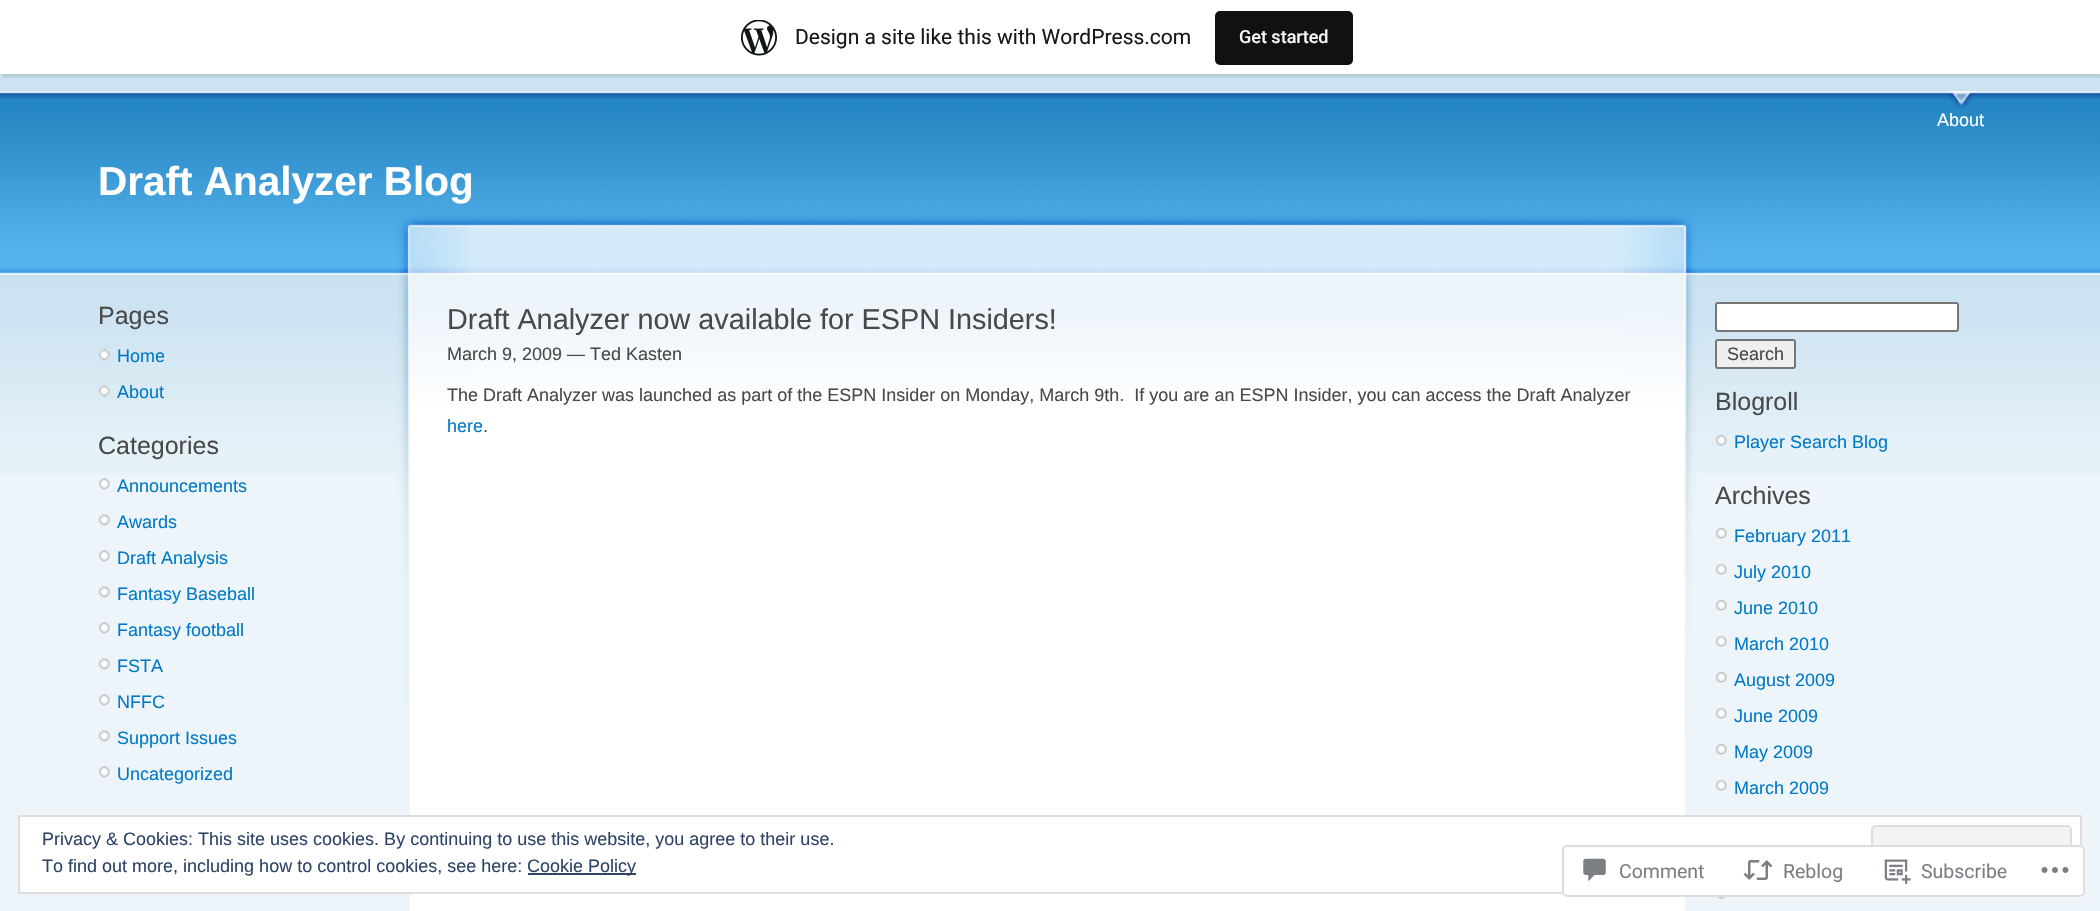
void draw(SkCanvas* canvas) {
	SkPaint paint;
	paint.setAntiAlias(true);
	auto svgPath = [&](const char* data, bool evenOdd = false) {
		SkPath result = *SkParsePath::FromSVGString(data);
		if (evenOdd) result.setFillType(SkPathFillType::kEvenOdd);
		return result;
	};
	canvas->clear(0xffedf5fa);
	paint.setColor(0xffcde3f1);
	canvas->drawRect(SkRect::MakeXYWH(0, 74, 2100, 18), paint);
	paint.setColor(0x0d000000);
	paint.setMaskFilter(SkMaskFilter::MakeBlur(kNormal_SkBlurStyle, 1.5));
	canvas->drawRect(SkRect::MakeXYWH(0, 2, 2100, 73), paint);
	paint.setMaskFilter(nullptr);
	paint.setColor(0x14000000);
	canvas->drawPath(svgPath("M2 74V78H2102V5H2100V74Z"), paint);
	paint.setColor(0xffffffff);
	canvas->drawRect(SkRect::MakeXYWH(0, 0, 2100, 74), paint);
	canvas->drawImageRect(SkImages::DeferredFromEncodedData(SkData::MakeFromFileName("img1.png")), SkRect::MakeXYWH(741, 20, 36, 36), SkSamplingOptions());
	SkFont f1(fontMgr->matchFamilyStyle("Roboto", SkFontStyle::Normal()), 21);
	f1.setSubpixel(true);
	paint.setColor(0xff171717);
	canvas->drawString("Design a site like this with WordPress.com", 795, 44, f1, paint);
	paint.setColor(0xff111111);
	canvas->drawRoundRect(SkRect::MakeXYWH(1215, 11, 138, 54), 5, 5, paint);
	SkFont f2(fontMgr->matchFamilyStyle("Roboto", SkFontStyle(500, SkFontStyle::kNormal_Width, SkFontStyle::kUpright_Slant)), 18);
	f2.setSubpixel(true);
	paint.setColor(0xfff6f7f7);
	canvas->drawString("Get started", 1239, 43, f2, paint);
	canvas->drawImageRect(SkImages::DeferredFromEncodedData(SkData::MakeFromFileName("img2.png")), SkRect::MakeXYWH(0, 91, 2100, 383), SkSamplingOptions());
	canvas->drawImageRect(SkImages::DeferredFromEncodedData(SkData::MakeFromFileName("img3.png")), SkRect::MakeXYWH(1948, 91, 26, 17), SkSamplingOptions());
	SkFont f3(fontMgr->matchFamilyStyle("Liberation Sans", SkFontStyle::Normal()), 18);
	f3.setSubpixel(true);
	paint.setColor(0xffffffff);
	canvas->drawString("About", 1937, 126, f3, paint);
	SkFont f4(fontMgr->matchFamilyStyle("Liberation Sans", SkFontStyle::Bold()), 40.5);
	f4.setSubpixel(true);
	canvas->drawString("Draft Analyzer Blog", 98, 195, f4, paint);
	SkFont f5(fontMgr->matchFamilyStyle("Liberation Sans", SkFontStyle::Normal()), 25);
	f5.setSubpixel(true);
	paint.setColor(0xff494949);
	canvas->drawString("Pages", 98, 324, f5, paint);
	canvas->drawImageRect(SkImages::DeferredFromEncodedData(SkData::MakeFromFileName("img4.png")), SkRect::MakeXYWH(98, 349, 12, 12), SkSamplingOptions());
	paint.setColor(0xff027ac6);
	canvas->drawString("Home", 117, 362, f3, paint);
	canvas->drawImageRect(SkImages::DeferredFromEncodedData(SkData::MakeFromFileName("img5.png")), SkRect::MakeXYWH(98, 385, 12, 12), SkSamplingOptions());
	canvas->drawString("About", 117, 398, f3, paint);
	paint.setColor(0xff494949);
	canvas->drawString("Categories", 98, 454, f5, paint);
	canvas->drawImageRect(SkImages::DeferredFromEncodedData(SkData::MakeFromFileName("img6.png")), SkRect::MakeXYWH(98, 478, 12, 12), SkSamplingOptions());
	paint.setColor(0xff027ac6);
	canvas->drawString("Announcements", 117, 492, f3, paint);
	canvas->drawImageRect(SkImages::DeferredFromEncodedData(SkData::MakeFromFileName("img6.png")), SkRect::MakeXYWH(98, 514, 12, 12), SkSamplingOptions());
	canvas->drawString("Awards", 117, 528, f3, paint);
	canvas->drawImageRect(SkImages::DeferredFromEncodedData(SkData::MakeFromFileName("img6.png")), SkRect::MakeXYWH(98, 550, 12, 12), SkSamplingOptions());
	canvas->drawString("Draft Analysis", 117, 564, f3, paint);
	canvas->drawImageRect(SkImages::DeferredFromEncodedData(SkData::MakeFromFileName("img6.png")), SkRect::MakeXYWH(98, 586, 12, 12), SkSamplingOptions());
	canvas->drawString("Fantasy Baseball", 117, 600, f3, paint);
	canvas->drawImageRect(SkImages::DeferredFromEncodedData(SkData::MakeFromFileName("img6.png")), SkRect::MakeXYWH(98, 622, 12, 12), SkSamplingOptions());
	canvas->drawString("Fantasy football", 117, 636, f3, paint);
	canvas->drawImageRect(SkImages::DeferredFromEncodedData(SkData::MakeFromFileName("img6.png")), SkRect::MakeXYWH(98, 658, 12, 12), SkSamplingOptions());
	canvas->drawString("FSTA", 117, 672, f3, paint);
	canvas->drawImageRect(SkImages::DeferredFromEncodedData(SkData::MakeFromFileName("img6.png")), SkRect::MakeXYWH(98, 694, 12, 12), SkSamplingOptions());
	canvas->drawString("NFFC", 117, 708, f3, paint);
	canvas->drawImageRect(SkImages::DeferredFromEncodedData(SkData::MakeFromFileName("img6.png")), SkRect::MakeXYWH(98, 730, 12, 12), SkSamplingOptions());
	canvas->drawString("Support Issues", 117, 744, f3, paint);
	canvas->drawImageRect(SkImages::DeferredFromEncodedData(SkData::MakeFromFileName("img6.png")), SkRect::MakeXYWH(98, 766, 12, 12), SkSamplingOptions());
	canvas->drawString("Uncategorized", 117, 780, f3, paint);
	paint.setColor(0xffffffff);
	canvas->drawRect(SkRect::MakeXYWH(410, 511, 1275, 400), paint);
	canvas->drawImageRect(SkImages::DeferredFromEncodedData(SkData::MakeFromFileName("img7.png")), SkRect::MakeXYWH(409, 212, 1216, 300), SkSamplingOptions());
	canvas->drawImageRect(SkImages::DeferredFromEncodedData(SkData::MakeFromFileName("img8.png")), SkRect::MakeXYWH(1624, 212, 75, 528), SkSamplingOptions());
	canvas->drawImageRect(SkImages::DeferredFromEncodedData(SkData::MakeFromFileName("img9.png")), SkRect::MakeXYWH(395, 218, 75, 521), SkSamplingOptions());
	SkFont f6(fontMgr->matchFamilyStyle("Liberation Sans", SkFontStyle::Normal()), 28.8);
	f6.setSubpixel(true);
	paint.setColor(0xff494949);
	canvas->drawString("Draft Analyzer now available for ESPN Insiders!", 447, 329, f6, paint);
	canvas->drawString("March 9, 2009 — Ted Kasten", 447, 360, f3, paint);
	canvas->drawString("The Draft Analyzer was launched as part of the ESPN Insider on Monday, March 9th.  If you are an ESPN Insider, you can access the Draft Analyzer", 447, 401, f3, paint);
	paint.setColor(0xff027ac6);
	canvas->drawString("here", 447, 432, f3, paint);
	paint.setColor(0xff494949);
	canvas->drawString(".", 483, 432, f3, paint);
	paint.setColor(0xffffffff);
	canvas->drawRoundRect(SkRect::MakeXYWH(1716, 303, 242, 28), 2, 2, paint);
	paint.setStroke(true);
	paint.setStrokeWidth(2);
	paint.setColor(0xff767676);
	canvas->drawRoundRect(SkRect::MakeXYWH(1716, 303, 242, 28), 2, 2, paint);
	paint.setStroke(false);
	paint.setColor(0xffefefef);
	canvas->drawRoundRect(SkRect::MakeXYWH(1716, 340, 79, 28), 2, 2, paint);
	paint.setStroke(true);
	paint.setColor(0xff767676);
	canvas->drawRoundRect(SkRect::MakeXYWH(1716, 340, 79, 28), 2, 2, paint);
	paint.setStroke(false);
	paint.setColor(0xff494949);
	canvas->drawString("Search", 1727, 360, f3, paint);
	canvas->drawString("Blogroll", 1715, 410, f5, paint);
	canvas->drawImageRect(SkImages::DeferredFromEncodedData(SkData::MakeFromFileName("img10.png")), SkRect::MakeXYWH(1715, 434, 12, 12), SkSamplingOptions());
	paint.setColor(0xff027ac6);
	canvas->drawString("Player Search Blog", 1734, 448, f3, paint);
	paint.setColor(0xff494949);
	canvas->drawString("Archives", 1715, 504, f5, paint);
	canvas->drawImageRect(SkImages::DeferredFromEncodedData(SkData::MakeFromFileName("img11.png")), SkRect::MakeXYWH(1715, 527, 12, 12), SkSamplingOptions());
	paint.setColor(0xff027ac6);
	canvas->drawString("February 2011", 1734, 542, f3, paint);
	canvas->drawImageRect(SkImages::DeferredFromEncodedData(SkData::MakeFromFileName("img11.png")), SkRect::MakeXYWH(1715, 563, 12, 12), SkSamplingOptions());
	canvas->drawString("July 2010", 1734, 578, f3, paint);
	canvas->drawImageRect(SkImages::DeferredFromEncodedData(SkData::MakeFromFileName("img11.png")), SkRect::MakeXYWH(1715, 599, 12, 12), SkSamplingOptions());
	canvas->drawString("June 2010", 1734, 614, f3, paint);
	canvas->drawImageRect(SkImages::DeferredFromEncodedData(SkData::MakeFromFileName("img11.png")), SkRect::MakeXYWH(1715, 635, 12, 12), SkSamplingOptions());
	canvas->drawString("March 2010", 1734, 650, f3, paint);
	canvas->drawImageRect(SkImages::DeferredFromEncodedData(SkData::MakeFromFileName("img11.png")), SkRect::MakeXYWH(1715, 671, 12, 12), SkSamplingOptions());
	canvas->drawString("August 2009", 1734, 686, f3, paint);
	canvas->drawImageRect(SkImages::DeferredFromEncodedData(SkData::MakeFromFileName("img11.png")), SkRect::MakeXYWH(1715, 707, 12, 12), SkSamplingOptions());
	canvas->drawString("June 2009", 1734, 722, f3, paint);
	canvas->drawImageRect(SkImages::DeferredFromEncodedData(SkData::MakeFromFileName("img11.png")), SkRect::MakeXYWH(1715, 743, 12, 12), SkSamplingOptions());
	canvas->drawString("May 2009", 1734, 758, f3, paint);
	canvas->drawImageRect(SkImages::DeferredFromEncodedData(SkData::MakeFromFileName("img11.png")), SkRect::MakeXYWH(1715, 779, 12, 12), SkSamplingOptions());
	canvas->drawString("March 2009", 1734, 794, f3, paint);
	canvas->drawImageRect(SkImages::DeferredFromEncodedData(SkData::MakeFromFileName("img12.png")), SkRect::MakeXYWH(1715, 894, 12, 5), SkSamplingOptions());
	paint.setColor(0xffffffff);
	canvas->drawRect(SkRect::MakeXYWH(19, 816, 2062, 77), paint);
	paint.setStroke(true);
	paint.setColor(0xffdedede);
	canvas->drawRect(SkRect::MakeXYWH(19, 816, 2062, 77), paint);
	paint.setStroke(false);
	paint.setColor(0xff2e4467);
	canvas->drawString("Privacy & Cookies: This site uses cookies. By continuing to use this website, you agree to their use.", 42, 845, f3, paint);
	paint.setColor(0xfff3f3f3);
	canvas->drawRoundRect(SkRect::MakeXYWH(1872, 826, 199, 57), 4, 4, paint);
	paint.setStroke(true);
	paint.setColor(0xffdedede);
	canvas->drawRoundRect(SkRect::MakeXYWH(1872, 826, 199, 57), 4, 4, paint);
	paint.setStroke(false);
	paint.setColor(0xff2e4467);
	canvas->drawString("To find out more, including how to control cookies, see here:", 42, 872, f3, paint);
	canvas->drawRect(SkRect::MakeXYWH(528, 873, 108, 2), paint);
	canvas->drawString("Cookie Policy", 527, 872, f3, paint);
	paint.setColor(0xfaffffff);
	canvas->drawRoundRect(SkRect::MakeXYWH(1562, 845, 523, 52), 5, 5, paint);
	paint.setStroke(true);
	paint.setColor(0xfadcdcde);
	canvas->drawRoundRect(SkRect::MakeXYWH(1563, 846, 521, 50), 4, 4, paint);
	canvas->drawImageRect(SkImages::DeferredFromEncodedData(SkData::MakeFromFileName("img13.png")), SkRect::MakeXYWH(1583, 858, 23, 24), SkSamplingOptions());
	SkFont f7(fontMgr->matchFamilyStyle("Roboto", SkFontStyle::Normal()), 19.5);
	f7.setSubpixel(true);
	paint.setStroke(false);
	paint.setColor(0xff7b7f85);
	canvas->drawString("Comment", 1619, 878, f7, paint);
	canvas->drawImageRect(SkImages::DeferredFromEncodedData(SkData::MakeFromFileName("img14.png")), SkRect::MakeXYWH(1743, 860, 30, 20), SkSamplingOptions());
	canvas->drawString("Reblog", 1783, 878, f7, paint);
	canvas->drawImageRect(SkImages::DeferredFromEncodedData(SkData::MakeFromFileName("img15.png")), SkRect::MakeXYWH(1884, 859, 27, 25), SkSamplingOptions());
	canvas->drawString("Subscribe", 1921, 878, f7, paint);
	canvas->drawImageRect(SkImages::DeferredFromEncodedData(SkData::MakeFromFileName("img16.png")), SkRect::MakeXYWH(2041, 867, 28, 6), SkSamplingOptions());
}
